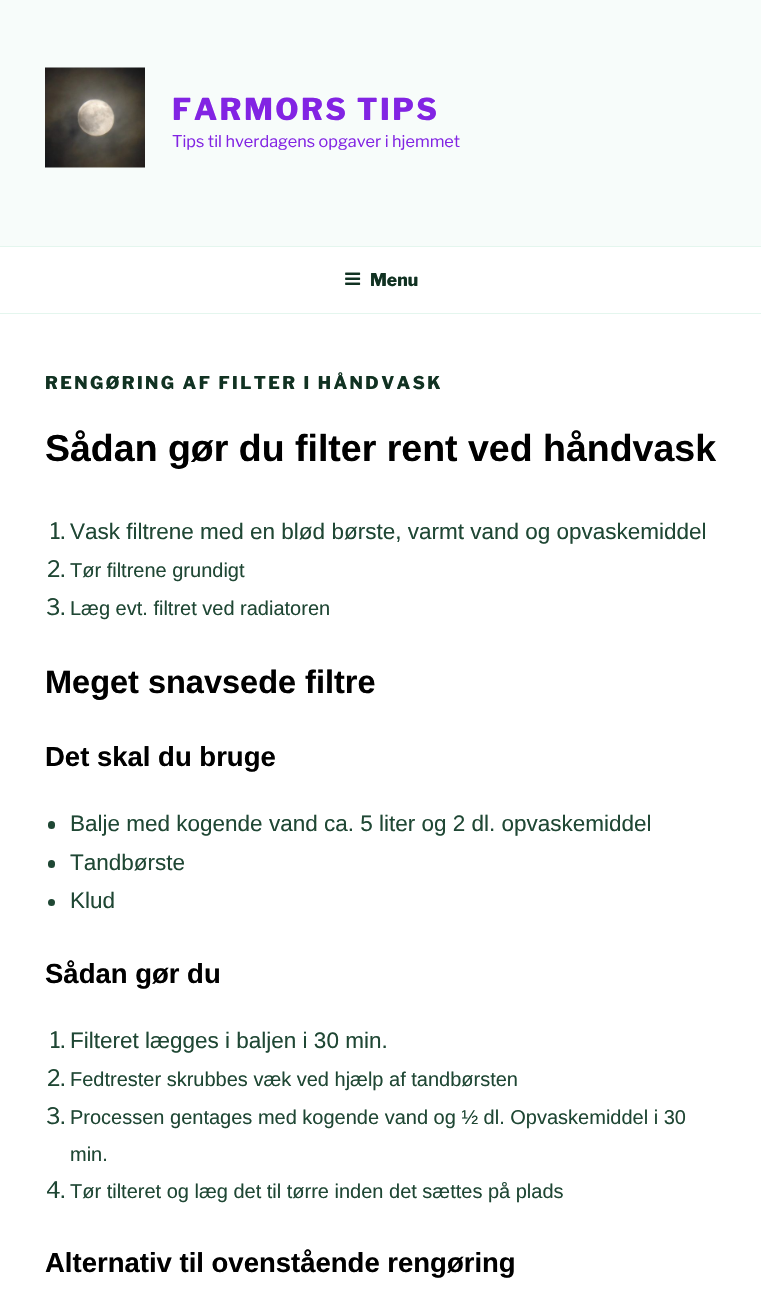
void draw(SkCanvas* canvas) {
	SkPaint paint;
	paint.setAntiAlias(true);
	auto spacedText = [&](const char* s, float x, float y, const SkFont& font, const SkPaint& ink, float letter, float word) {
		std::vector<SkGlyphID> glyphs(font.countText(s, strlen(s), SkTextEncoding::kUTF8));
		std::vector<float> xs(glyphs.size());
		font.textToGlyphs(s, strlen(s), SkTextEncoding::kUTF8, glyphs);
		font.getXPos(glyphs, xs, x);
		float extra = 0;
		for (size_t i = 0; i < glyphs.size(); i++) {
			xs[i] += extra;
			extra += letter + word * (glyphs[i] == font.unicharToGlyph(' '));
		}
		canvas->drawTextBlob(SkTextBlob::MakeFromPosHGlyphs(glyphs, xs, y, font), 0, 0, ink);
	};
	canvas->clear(0xffffffff);
	paint.setColor(0xfff7fcfa);
	canvas->drawRect(SkRect::MakeXYWH(0, 0, 761, 246), paint);
	canvas->drawImageRect(SkImages::DeferredFromEncodedData(SkData::MakeFromFileName("img1.png")), SkRect::MakeXYWH(45, 67, 100, 101), SkSamplingOptions());
	SkFont f1(fontMgr->matchFamilyStyle("Libre Franklin", SkFontStyle(100, SkFontStyle::kNormal_Width, SkFontStyle::kUpright_Slant)), 30);
	f1.setSubpixel(true);
	paint.setColor(0xff8224e3);
	spacedText("FARMORS TIPS", 172, 120, f1, paint, 2.4, 0);
	SkFont f2(fontMgr->matchFamilyStyle("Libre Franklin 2", SkFontStyle(100, SkFontStyle::kNormal_Width, SkFontStyle::kUpright_Slant)), 16.25);
	f2.setSubpixel(true);
	canvas->drawString("Tips til hverdagens opgaver i hjemmet", 172, 147, f2, paint);
	paint.setColor(0xffe4f6ee);
	canvas->drawRect(SkRect::MakeXYWH(0, 246, 761, 1), paint);
	canvas->drawRect(SkRect::MakeXYWH(0, 313, 761, 1), paint);
	canvas->drawImageRect(SkImages::DeferredFromEncodedData(SkData::MakeFromFileName("img2.png")), SkRect::MakeXYWH(345, 272, 16, 13), SkSamplingOptions());
	SkFont f3(fontMgr->matchFamilyStyle("Libre Franklin", SkFontStyle(100, SkFontStyle::kNormal_Width, SkFontStyle::kUpright_Slant)), 17.5);
	f3.setSubpixel(true);
	paint.setColor(0xff113222);
	canvas->drawString("Menu", 370, 286, f3, paint);
	spacedText("RENGØRING AF FILTER I HÅNDVASK", 45, 389, f3, paint, 2.45, 0);
	SkFont f4(fontMgr->matchFamilyStyle("Liberation Sans", SkFontStyle::Bold()), 37.5);
	f4.setSubpixel(true);
	paint.setColor(0xff000000);
	canvas->drawString("Sådan gør du filter rent ved håndvask", 45, 461, f4, paint);
	SkFont f5(fontMgr->matchFamilyStyle("Libre Franklin 2", SkFontStyle(100, SkFontStyle::kNormal_Width, SkFontStyle::kUpright_Slant)), 22.5);
	f5.setSubpixel(true);
	paint.setColor(0xff1f4734);
	canvas->drawString("1.", 50, 539, f5, paint);
	SkFont f6(fontMgr->matchFamilyStyle("Liberation Sans", SkFontStyle::Normal()), 22.5);
	f6.setSubpixel(true);
	canvas->drawString("Vask filtrene med en blød børste, varmt vand og opvaskemiddel", 70, 539, f6, paint);
	canvas->drawString("2.", 47, 577, f5, paint);
	SkFont f7(fontMgr->matchFamilyStyle("Liberation Sans", SkFontStyle::Normal()), 20);
	f7.setSubpixel(true);
	canvas->drawString("Tør filtrene grundigt", 70, 577, f7, paint);
	canvas->drawString("3.", 46, 615, f5, paint);
	canvas->drawString("Læg evt. filtret ved radiatoren", 70, 615, f7, paint);
	SkFont f8(fontMgr->matchFamilyStyle("Liberation Sans", SkFontStyle::Bold()), 32.5);
	f8.setSubpixel(true);
	paint.setColor(0xff000000);
	canvas->drawString("Meget snavsede filtre", 45, 693, f8, paint);
	SkFont f9(fontMgr->matchFamilyStyle("Liberation Sans", SkFontStyle::Bold()), 27.5);
	f9.setSubpixel(true);
	canvas->drawString("Det skal du bruge", 45, 766, f9, paint);
	paint.setColor(0xff1f4734);
	canvas->drawRoundRect(SkRect::MakeXYWH(48, 821, 7, 8), 3.5, 3.5, paint);
	canvas->drawString("Balje med kogende vand ca. 5 liter og 2 dl. opvaskemiddel", 70, 831, f6, paint);
	canvas->drawRoundRect(SkRect::MakeXYWH(48, 860, 7, 8), 3.5, 3.5, paint);
	canvas->drawString("Tandbørste", 70, 870, f6, paint);
	canvas->drawCircle(51.5, 902.5, 3.5, paint);
	canvas->drawString("Klud", 70, 908, f6, paint);
	paint.setColor(0xff000000);
	canvas->drawString("Sådan gør du", 45, 983, f9, paint);
	paint.setColor(0xff1f4734);
	canvas->drawString("1.", 50, 1048, f5, paint);
	canvas->drawString("Filteret lægges i baljen i 30 min.", 70, 1048, f6, paint);
	canvas->drawString("2.", 47, 1086, f5, paint);
	canvas->drawString("Fedtrester skrubbes væk ved hjælp af tandbørsten", 70, 1086, f7, paint);
	canvas->drawString("3.", 46, 1124, f5, paint);
	canvas->drawString("Processen gentages med kogende vand og ½ dl. Opvaskemiddel i 30", 70, 1124, f7, paint);
	canvas->drawString("min.", 70, 1161, f7, paint);
	canvas->drawString("4.", 46, 1198, f5, paint);
	canvas->drawString("Tør tilteret og læg det til tørre inden det sættes på plads", 70, 1198, f7, paint);
	paint.setColor(0xff000000);
	canvas->drawString("Alternativ til ovenstående rengøring", 45, 1272, f9, paint);
}
